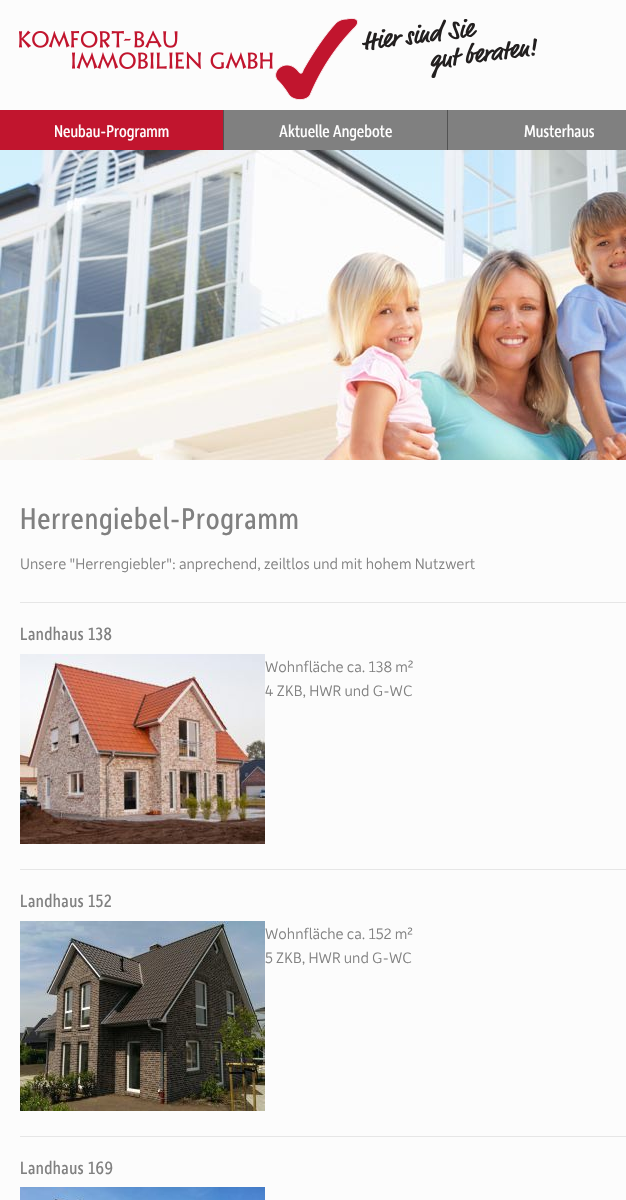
void draw(SkCanvas* canvas) {
	SkPaint paint;
	paint.setAntiAlias(true);
	auto spacedText = [&](const char* s, float x, float y, const SkFont& font, const SkPaint& ink, float letter, float word) {
		std::vector<SkGlyphID> glyphs(font.countText(s, strlen(s), SkTextEncoding::kUTF8));
		std::vector<float> xs(glyphs.size());
		font.textToGlyphs(s, strlen(s), SkTextEncoding::kUTF8, glyphs);
		font.getXPos(glyphs, xs, x);
		float extra = 0;
		for (size_t i = 0; i < glyphs.size(); i++) {
			xs[i] += extra;
			extra += letter + word * (glyphs[i] == font.unicharToGlyph(' '));
		}
		canvas->drawTextBlob(SkTextBlob::MakeFromPosHGlyphs(glyphs, xs, y, font), 0, 0, ink);
	};
	canvas->clear(0xfffcfcfc);
	canvas->drawImageRect(SkImages::DeferredFromEncodedData(SkData::MakeFromFileName("img1.png")), SkRect::MakeXYWH(19, 18, 518, 82), SkSamplingOptions());
	paint.setColor(0xffc1152e);
	canvas->drawRect(SkRect::MakeXYWH(0, 110, 223, 40), paint);
	paint.setColor(0xff525252);
	canvas->drawRect(SkRect::MakeXYWH(223, 110, 1, 40), paint);
	SkFont f1(fontMgr->matchFamilyStyle("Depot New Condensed", SkFontStyle::Normal()), 18);
	f1.setSubpixel(true);
	paint.setColor(0xffffffff);
	canvas->drawString("Neubau-Programm", 54, 137, f1, paint);
	paint.setColor(0xff808080);
	canvas->drawRect(SkRect::MakeXYWH(224, 110, 223, 40), paint);
	paint.setColor(0xff525252);
	canvas->drawRect(SkRect::MakeXYWH(447, 110, 1, 40), paint);
	paint.setColor(0xffffffff);
	canvas->drawString("Aktuelle Angebote", 279, 137, f1, paint);
	paint.setColor(0xff808080);
	canvas->drawRect(SkRect::MakeXYWH(448, 110, 178, 40), paint);
	paint.setColor(0xffffffff);
	canvas->drawString("Musterhaus", 524, 137, f1, paint);
	canvas->drawImageRect(SkImages::DeferredFromEncodedData(SkData::MakeFromFileName("img2.png")), SkRect::MakeXYWH(0, 150, 626, 310), SkSamplingOptions());
	paint.setColor(0xffe6e6e6);
	canvas->drawRect(SkRect::MakeXYWH(20, 602, 606, 1), paint);
	SkFont f2(fontMgr->matchFamilyStyle("Depot New Condensed", SkFontStyle::Normal()), 32);
	f2.setSubpixel(true);
	paint.setColor(0xff808080);
	spacedText("Herrengiebel-Programm", 20, 529, f2, paint, 0.8, 0);
	SkFont f3(fontMgr->matchFamilyStyle("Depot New", SkFontStyle(300, SkFontStyle::kNormal_Width, SkFontStyle::kUpright_Slant)), 16);
	f3.setSubpixel(true);
	canvas->drawString("Unsere \"Herrengiebler\": anprechend, zeiltlos und mit hohem Nutzwert", 20, 569, f3, paint);
	paint.setColor(0xffe6e6e6);
	canvas->drawRect(SkRect::MakeXYWH(20, 869, 606, 1), paint);
	SkFont f4(fontMgr->matchFamilyStyle("Depot New Condensed", SkFontStyle::Normal()), 19);
	f4.setSubpixel(true);
	paint.setColor(0xff808080);
	spacedText("Landhaus 138", 20, 640, f4, paint, 0.5, 0);
	canvas->drawImageRect(SkImages::DeferredFromEncodedData(SkData::MakeFromFileName("img3.png")), SkRect::MakeXYWH(20, 654, 245, 190), SkSamplingOptions());
	canvas->drawString("Wohnfläche ca. 138 m²", 265, 672, f3, paint);
	canvas->drawString("4 ZKB, HWR und G-WC", 265, 696, f3, paint);
	paint.setColor(0xffe6e6e6);
	canvas->drawRect(SkRect::MakeXYWH(20, 1136, 606, 1), paint);
	paint.setColor(0xff808080);
	spacedText("Landhaus 152", 20, 907, f4, paint, 0.5, 0);
	canvas->drawImageRect(SkImages::DeferredFromEncodedData(SkData::MakeFromFileName("img4.png")), SkRect::MakeXYWH(20, 921, 245, 190), SkSamplingOptions());
	canvas->drawString("Wohnfläche ca. 152 m²", 265, 939, f3, paint);
	canvas->drawString("5 ZKB, HWR und G-WC", 265, 963, f3, paint);
	spacedText("Landhaus 169", 20, 1174, f4, paint, 0.5, 0);
	canvas->drawImageRect(SkImages::DeferredFromEncodedData(SkData::MakeFromFileName("img5.png")), SkRect::MakeXYWH(20, 1187, 245, 13), SkSamplingOptions());
}
